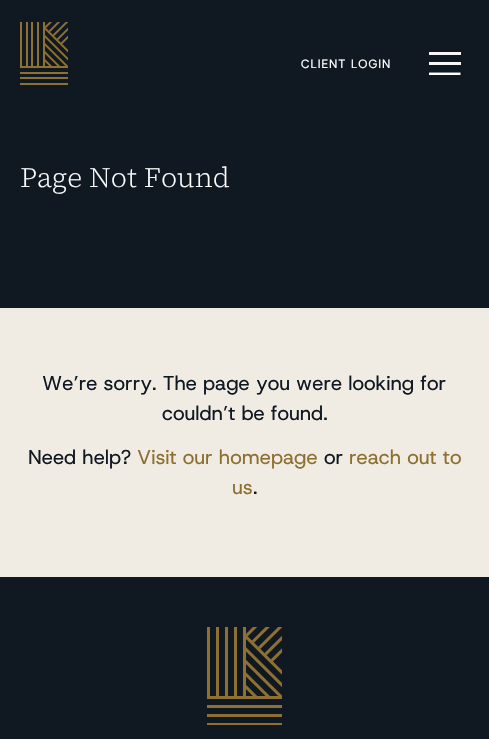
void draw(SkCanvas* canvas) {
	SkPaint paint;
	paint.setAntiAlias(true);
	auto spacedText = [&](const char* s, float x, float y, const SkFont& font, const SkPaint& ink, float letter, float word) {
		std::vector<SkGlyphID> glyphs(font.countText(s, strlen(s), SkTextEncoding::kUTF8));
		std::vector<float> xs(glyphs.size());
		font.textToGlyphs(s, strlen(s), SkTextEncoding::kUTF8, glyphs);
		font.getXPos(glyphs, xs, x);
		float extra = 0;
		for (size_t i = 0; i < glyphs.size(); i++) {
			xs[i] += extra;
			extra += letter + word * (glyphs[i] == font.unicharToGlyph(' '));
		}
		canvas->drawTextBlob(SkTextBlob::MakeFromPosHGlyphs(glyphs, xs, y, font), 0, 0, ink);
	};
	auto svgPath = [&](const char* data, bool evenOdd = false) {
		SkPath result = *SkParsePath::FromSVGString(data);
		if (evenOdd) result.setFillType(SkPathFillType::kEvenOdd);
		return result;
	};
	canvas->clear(0xfff0ece4);
	paint.setColor(0xff101822);
	canvas->drawRect(SkRect::MakeXYWH(0, 0, 489, 308), paint);
	canvas->drawImageRect(SkImages::DeferredFromEncodedData(SkData::MakeFromFileName("img1.png")), SkRect::MakeXYWH(20, 22, 48, 63), SkSamplingOptions());
	SkFont f1(fontMgr->matchFamilyStyle("Host Grotesk", SkFontStyle::Normal()), 12);
	f1.setSubpixel(true);
	paint.setColor(0xffffffff);
	spacedText("CLIENT LOGIN", 301, 68, f1, paint, 1, 0);
	paint.setColor(0xfff7f7f8);
	canvas->drawRect(SkRect::MakeXYWH(429, 52, 32, 3), paint);
	canvas->drawRect(SkRect::MakeXYWH(429, 62, 32, 3), paint);
	canvas->save();
	canvas->clipRect(SkRect::MakeXYWH(429, 52, 32, 23));
	paint.setStroke(true);
	paint.setStrokeWidth(2.9);
	paint.setColor(0xffffffff);
	canvas->drawPath(svgPath("M429 74H460.5"), paint);
	canvas->restore();
	SkFont f2(fontMgr->matchFamilyStyle("Source Serif 4", SkFontStyle(300, SkFontStyle::kNormal_Width, SkFontStyle::kUpright_Slant)), 28);
	f2.setSubpixel(true);
	paint.setStroke(false);
	canvas->drawString("Page Not Found", 20, 187, f2, paint);
	SkFont f3(fontMgr->matchFamilyStyle("Host Grotesk", SkFontStyle::Normal()), 20);
	f3.setSubpixel(true);
	paint.setColor(0xff101822);
	canvas->drawString("We’re sorry. The page you were looking for", 42, 390, f3, paint);
	canvas->drawString("couldn’t be found.", 162, 420, f3, paint);
	canvas->drawString("Need help?", 28, 464, f3, paint);
	paint.setColor(0xff8d7031);
	canvas->drawString("Visit our homepage", 137, 464, f3, paint);
	paint.setColor(0xff101822);
	canvas->drawString("or", 324, 464, f3, paint);
	paint.setColor(0xff8d7031);
	canvas->drawString("reach out to", 349, 464, f3, paint);
	canvas->drawString("us", 232, 494, f3, paint);
	paint.setColor(0xff101822);
	canvas->drawString(".", 253, 494, f3, paint);
	canvas->drawRect(SkRect::MakeXYWH(0, 577, 489, 162), paint);
	canvas->drawImageRect(SkImages::DeferredFromEncodedData(SkData::MakeFromFileName("img2.png")), SkRect::MakeXYWH(207, 627, 75, 98), SkSamplingOptions());
}
